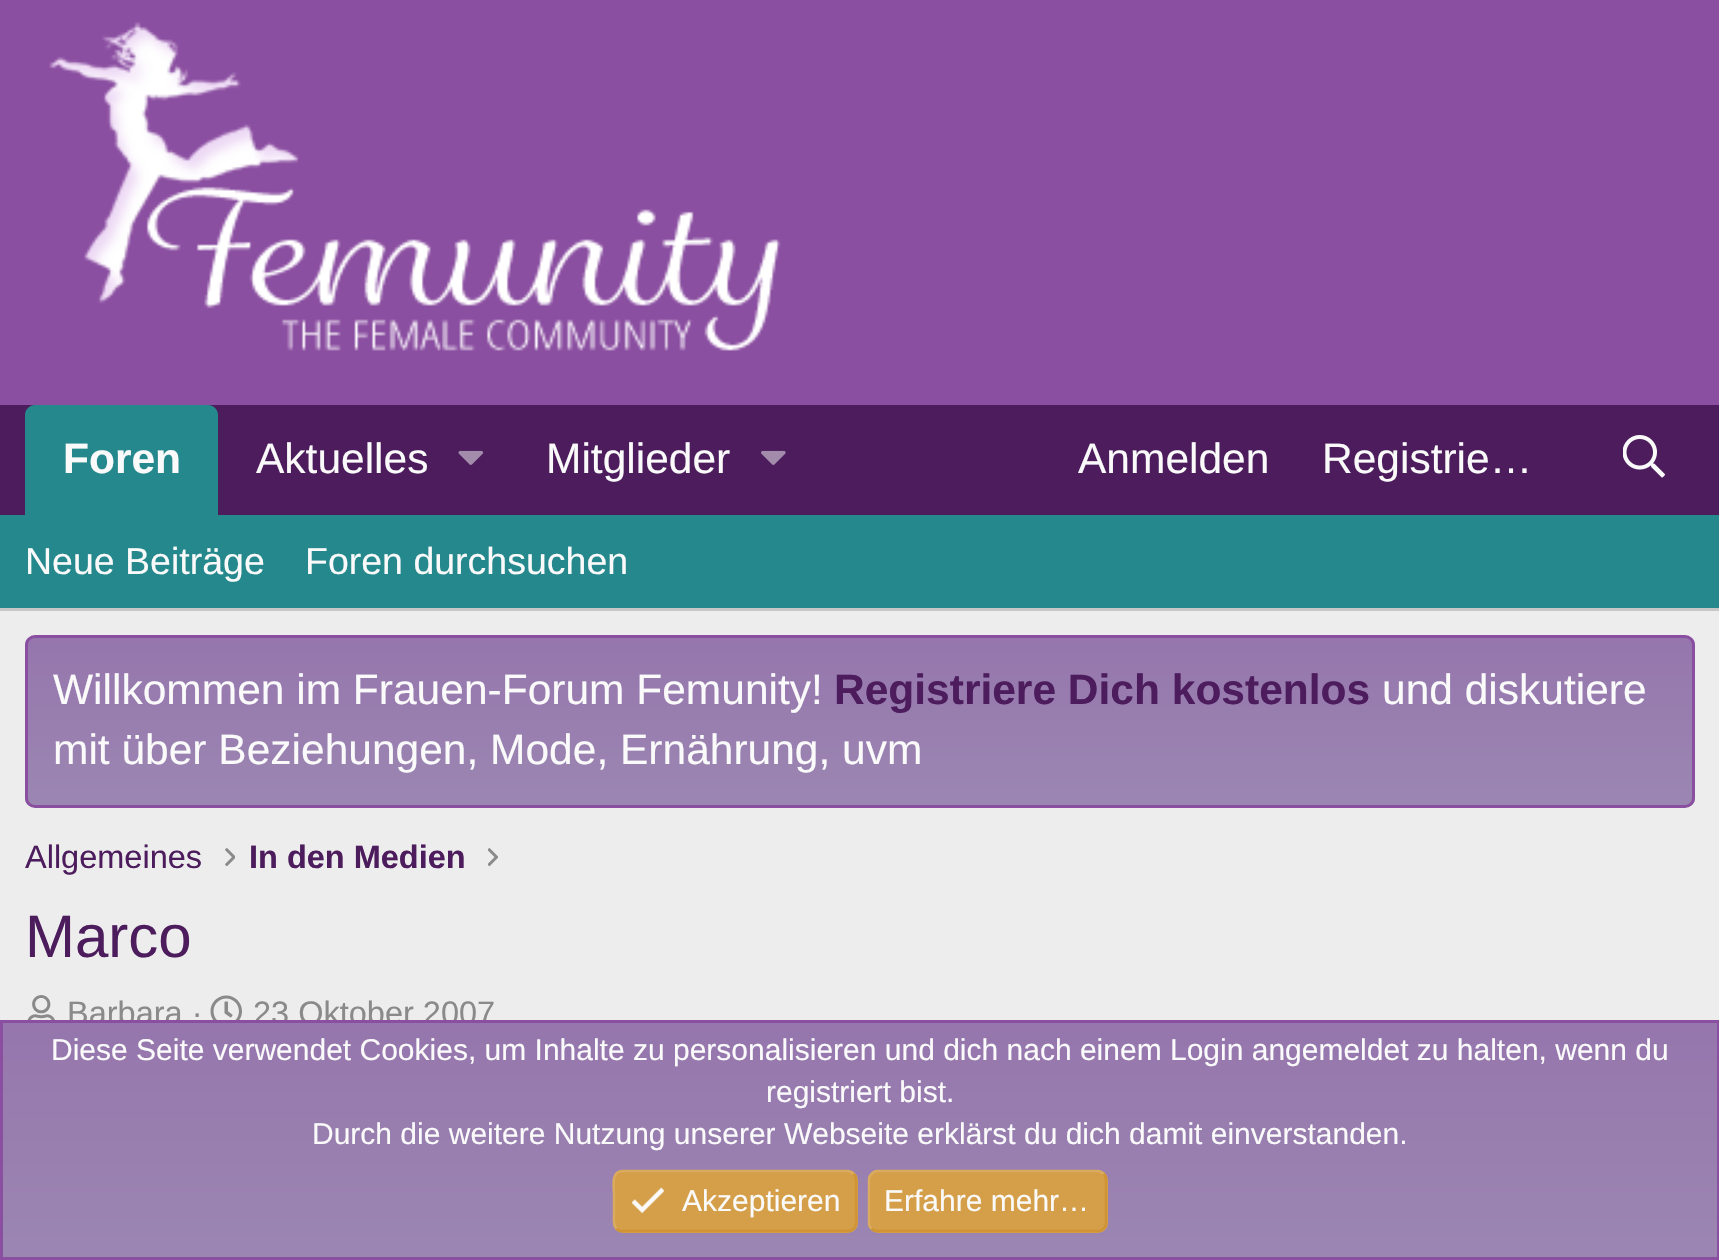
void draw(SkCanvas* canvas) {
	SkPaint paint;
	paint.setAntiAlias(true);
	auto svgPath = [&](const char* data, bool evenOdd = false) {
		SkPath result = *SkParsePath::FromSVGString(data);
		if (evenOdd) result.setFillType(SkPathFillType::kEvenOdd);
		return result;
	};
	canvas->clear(0xffededed);
	paint.setColor(0xff8b4fa1);
	canvas->drawRect(SkRect::MakeXYWH(0, 0, 1719, 405), paint);
	canvas->drawImageRect(SkImages::DeferredFromEncodedData(SkData::MakeFromFileName("img1.png")), SkRect::MakeXYWH(49, 22, 732, 329), SkSamplingOptions());
	paint.setColor(0xff4c1c5d);
	canvas->drawRect(SkRect::MakeXYWH(0, 405, 1719, 110), paint);
	paint.setColor(0xff24888d);
	canvas->drawPath(svgPath("M35 405H208C213.5 405 218 409.5 218 415V515H25V415C25 409.5 29.5 405 35 405Z"), paint);
	SkFont f1(fontMgr->matchFamilyStyle("Liberation Sans", SkFontStyle::Bold()), 42.5);
	f1.setSubpixel(true);
	paint.setColor(0xfffafafa);
	canvas->drawString("Foren", 63, 473, f1, paint);
	SkFont f2(fontMgr->matchFamilyStyle("Liberation Sans", SkFontStyle::Normal()), 42.5);
	f2.setSubpixel(true);
	canvas->drawString("Aktuelles", 256, 473, f2, paint);
	canvas->drawImageRect(SkImages::DeferredFromEncodedData(SkData::MakeFromFileName("img2.png")), SkRect::MakeXYWH(458, 450, 26, 15), SkSamplingOptions());
	canvas->drawString("Mitglieder", 546, 473, f2, paint);
	canvas->drawImageRect(SkImages::DeferredFromEncodedData(SkData::MakeFromFileName("img3.png")), SkRect::MakeXYWH(761, 450, 25, 15), SkSamplingOptions());
	canvas->drawString("Anmelden", 1078, 473, f2, paint);
	canvas->drawString("Registrie…", 1322, 473, f2, paint);
	canvas->drawImageRect(SkImages::DeferredFromEncodedData(SkData::MakeFromFileName("img4.png")), SkRect::MakeXYWH(1623, 435, 42, 43), SkSamplingOptions());
	paint.setColor(0xff24888d);
	canvas->drawRect(SkRect::MakeXYWH(0, 515, 1719, 93), paint);
	paint.setColor(0xffc7c7c7);
	canvas->drawRect(SkRect::MakeXYWH(0, 608, 1719, 3), paint);
	SkFont f3(fontMgr->matchFamilyStyle("Liberation Sans", SkFontStyle::Normal()), 37.5);
	f3.setSubpixel(true);
	paint.setColor(0xfffafafa);
	canvas->drawString("Neue Beiträge", 25, 574, f3, paint);
	canvas->drawString("Foren durchsuchen", 305, 574, f3, paint);
	canvas->save();
	canvas->clipPath(svgPath("M35 635H1685C1690.5 635 1695 639.5 1695 645V798C1695 803.5 1690.5 808 1685 808H35C29.5 808 25 803.5 25 798V645C25 639.5 29.5 635 35 635Z"), true);
	{
		const SkColor colors[] = {0xff9b86b2, 0xff9676ad};
		const float stops[] = {0, 1};
		const SkPoint ends[] = {{860, 805}, {860, 638}};
		paint.setShader(SkGradientShader::MakeLinear(ends, colors, stops, 2, SkTileMode::kClamp));
		paint.setAlpha(255);
	}
	canvas->drawRect(SkRect::MakeXYWH(25, 638, 1670, 167), paint);
	canvas->restore();
	paint.setStroke(true);
	paint.setStrokeWidth(3);
	paint.setShader(nullptr);
	paint.setColor(0xff8b4fa1);
	canvas->drawRoundRect(SkRect::MakeXYWH(26.5, 636.5, 1667, 170), 8.5, 8.5, paint);
	paint.setStroke(false);
	paint.setColor(0xfffafafa);
	canvas->drawString("Willkommen im Frauen-Forum Femunity!", 53, 704, f2, paint);
	paint.setColor(0xff4c1c5d);
	canvas->drawString("Registriere Dich kostenlos", 834, 704, f1, paint);
	paint.setColor(0xfffafafa);
	canvas->drawString("und diskutiere", 1382, 704, f2, paint);
	canvas->drawString("mit über Beziehungen, Mode, Ernährung, uvm", 53, 764, f2, paint);
	SkFont f4(fontMgr->matchFamilyStyle("Liberation Sans", SkFontStyle::Normal()), 32.5);
	f4.setSubpixel(true);
	paint.setColor(0xff4c1c5d);
	canvas->drawString("Allgemeines", 25, 868, f4, paint);
	canvas->drawImageRect(SkImages::DeferredFromEncodedData(SkData::MakeFromFileName("img5.png")), SkRect::MakeXYWH(225, 848, 10, 19), SkSamplingOptions());
	SkFont f5(fontMgr->matchFamilyStyle("Liberation Sans", SkFontStyle::Bold()), 32.5);
	f5.setSubpixel(true);
	canvas->drawString("In den Medien", 249, 868, f5, paint);
	canvas->drawImageRect(SkImages::DeferredFromEncodedData(SkData::MakeFromFileName("img6.png")), SkRect::MakeXYWH(488, 848, 10, 19), SkSamplingOptions());
	SkFont f6(fontMgr->matchFamilyStyle("Liberation Sans", SkFontStyle::Normal()), 60);
	f6.setSubpixel(true);
	canvas->drawString("Marco", 25, 957, f6, paint);
	canvas->drawImageRect(SkImages::DeferredFromEncodedData(SkData::MakeFromFileName("img7.png")), SkRect::MakeXYWH(27, 995, 28, 25), SkSamplingOptions());
	paint.setColor(0xff8a8a8a);
	canvas->drawString("Barbara ·", 67, 1024, f4, paint);
	canvas->drawImageRect(SkImages::DeferredFromEncodedData(SkData::MakeFromFileName("img8.png")), SkRect::MakeXYWH(210, 995, 32, 25), SkSamplingOptions());
	canvas->drawString("23 Oktober 2007", 253, 1024, f4, paint);
	{
		const SkColor colors[] = {0xff9b86b2, 0xff9676ad};
		const float stops[] = {0, 1};
		const SkPoint ends[] = {{860, 1258}, {860, 1023}};
		paint.setShader(SkGradientShader::MakeLinear(ends, colors, stops, 2, SkTileMode::kClamp));
		paint.setAlpha(255);
	}
	canvas->drawRect(SkRect::MakeXYWH(3, 1023, 1714, 234), paint);
	paint.setStroke(true);
	paint.setShader(nullptr);
	paint.setColor(0xff8b4fa1);
	canvas->drawRect(SkRect::MakeXYWH(1.5, 1021.5, 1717, 237), paint);
	SkFont f7(fontMgr->matchFamilyStyle("Liberation Sans", SkFontStyle::Normal()), 30);
	f7.setSubpixel(true);
	paint.setStroke(false);
	paint.setColor(0xfffafafa);
	canvas->drawString("Diese Seite verwendet Cookies, um Inhalte zu personalisieren und dich nach einem Login angemeldet zu halten, wenn du", 51, 1060, f7, paint);
	canvas->drawString("registriert bist.", 766, 1102, f7, paint);
	canvas->drawString("Durch die weitere Nutzung unserer Webseite erklärst du dich damit einverstanden.", 312, 1144, f7, paint);
	paint.setColor(0xffd59f49);
	canvas->drawRoundRect(SkRect::MakeXYWH(613, 1170, 245, 63), 10, 10, paint);
	paint.setStroke(true);
	paint.setStrokeWidth(2.5);
	paint.setColor(0xffd09434);
	canvas->drawPath(svgPath("M853.5 1174C857 1177.5 856 1182.5 856 1187V1208.5C856 1215.5 859.5 1231 847.5 1231H622.5C620 1231 618 1230.5 616.5 1228.5"), paint);
	paint.setColor(0xffdaaa5e);
	canvas->drawPath(svgPath("M616.5 1228.5C613 1225 614 1220 614 1215.5V1194C614 1187 610.5 1171.5 622.5 1171H847.5C850 1171.5 852 1172 853.5 1174"), paint);
	canvas->drawImageRect(SkImages::DeferredFromEncodedData(SkData::MakeFromFileName("img9.png")), SkRect::MakeXYWH(632, 1187, 32, 27), SkSamplingOptions());
	paint.setStroke(false);
	paint.setColor(0xfffafafa);
	canvas->drawString("Akzeptieren", 682, 1211, f7, paint);
	paint.setColor(0xffd59f49);
	canvas->drawRoundRect(SkRect::MakeXYWH(868, 1170, 240, 63), 10, 10, paint);
	paint.setStroke(true);
	paint.setColor(0xffd09434);
	canvas->drawPath(svgPath("M1103.5 1174C1105.5 1175.5 1106 1177.5 1106 1180V1222.5C1106 1225 1105.5 1227 1103.5 1228.5C1102 1230.5 1100 1231 1097.5 1231H877.5C875 1231 873 1230.5 871.5 1228.5"), paint);
	paint.setColor(0xffdaaa5e);
	canvas->drawPath(svgPath("M871.5 1228.5C869.5 1227 869 1225 869 1222.5V1180C869 1177.5 869.5 1175.5 871.5 1174C873 1172 875 1171 877.5 1171H1097.5C1100 1171 1102 1172 1103.5 1174"), paint);
	paint.setStroke(false);
	paint.setColor(0xfffafafa);
	canvas->drawString("Erfahre mehr…", 884, 1211, f7, paint);
}
